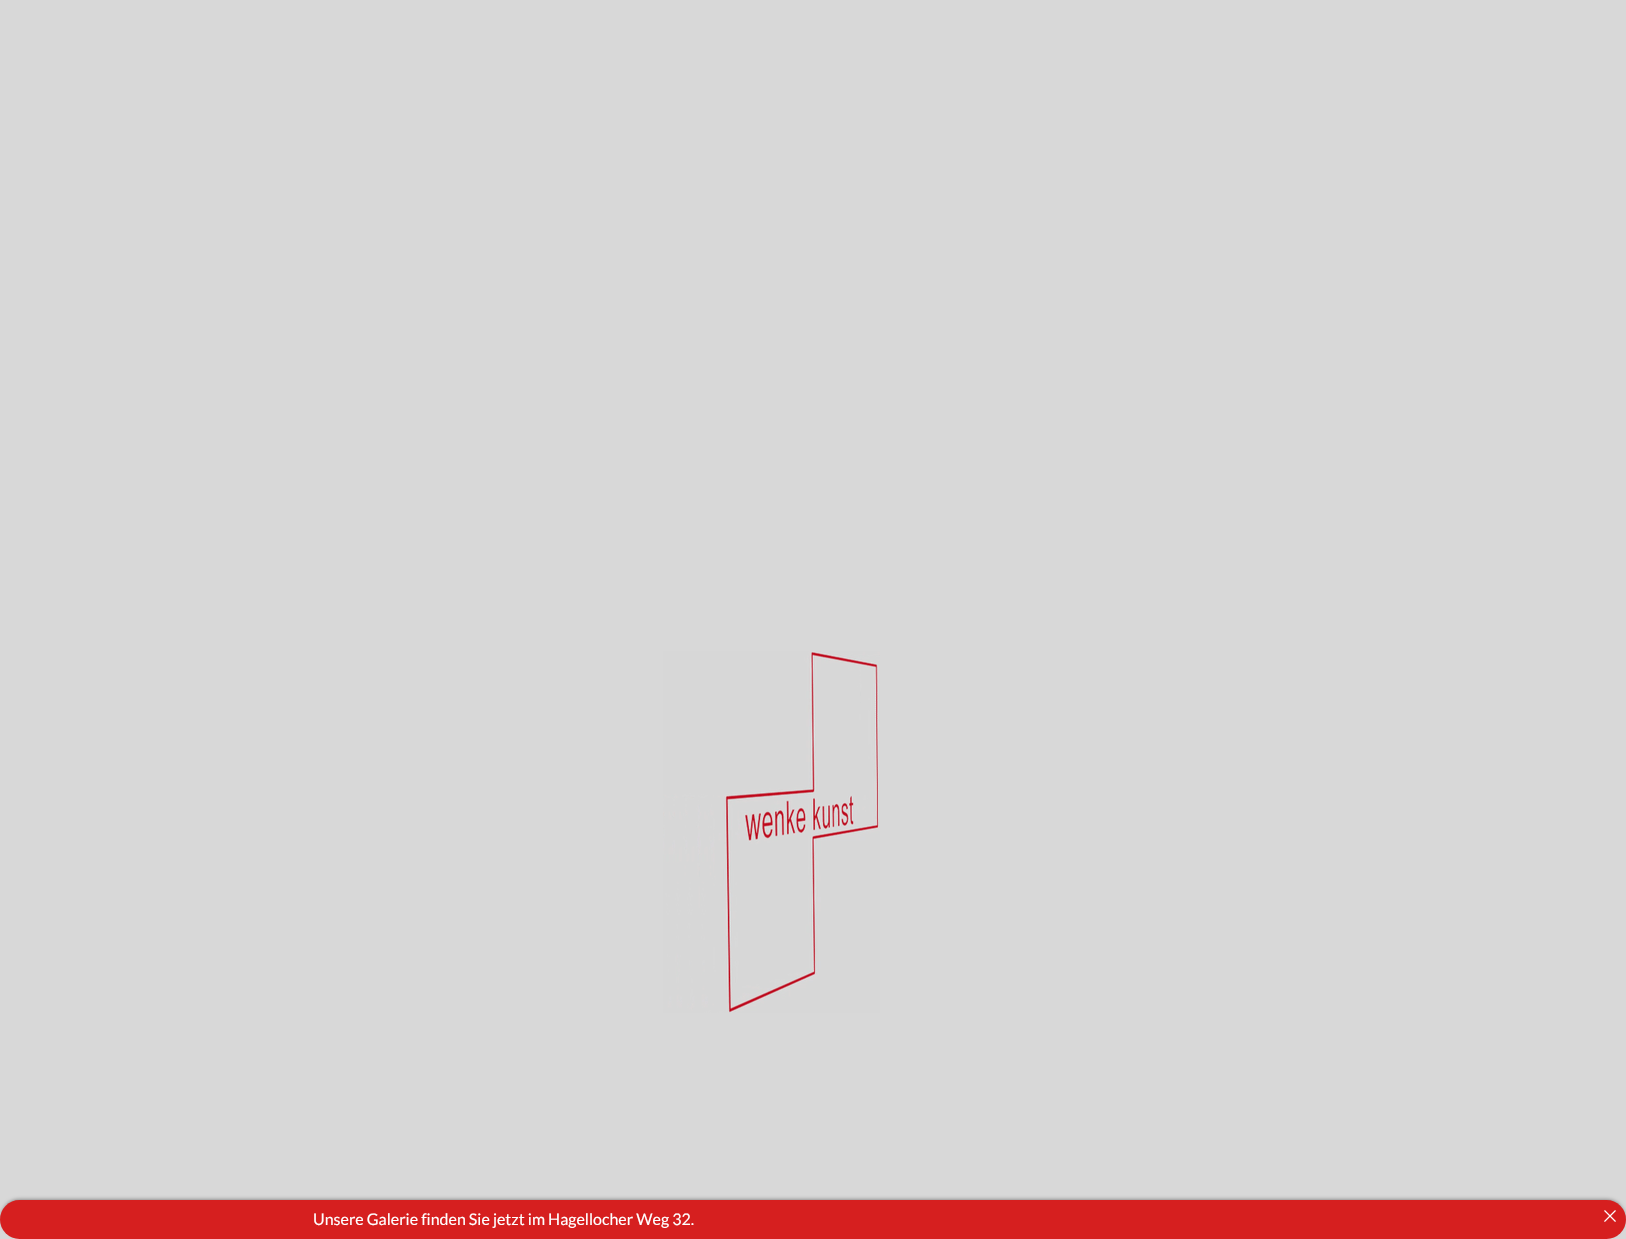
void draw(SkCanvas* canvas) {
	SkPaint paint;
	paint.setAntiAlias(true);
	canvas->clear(0xffd8d8d8);
	canvas->drawImageRect(SkImages::DeferredFromEncodedData(SkData::MakeFromFileName("img1.png")), SkRect::MakeXYWH(663, 651, 217, 362), SkSamplingOptions());
	paint.setColor(0x80000000);
	paint.setMaskFilter(SkMaskFilter::MakeBlur(kNormal_SkBlurStyle, 2));
	canvas->drawRoundRect(SkRect::MakeXYWH(2, 1200, 1622, 35), 17.5, 17.5, paint);
	paint.setMaskFilter(nullptr);
	paint.setColor(0xffd61f1f);
	canvas->drawRoundRect(SkRect::MakeXYWH(0, 1200, 1626, 39), 19.5, 19.5, paint);
	SkFont f1(fontMgr->matchFamilyStyle("Lato", SkFontStyle::Normal()), 16);
	f1.setSubpixel(true);
	paint.setColor(0xffffffff);
	canvas->drawString("Unsere Galerie finden Sie jetzt im Hagellocher Weg 32.", 313, 1225, f1, paint);
	canvas->drawImageRect(SkImages::DeferredFromEncodedData(SkData::MakeFromFileName("img2.png")), SkRect::MakeXYWH(1604, 1210, 12, 12), SkSamplingOptions());
}
